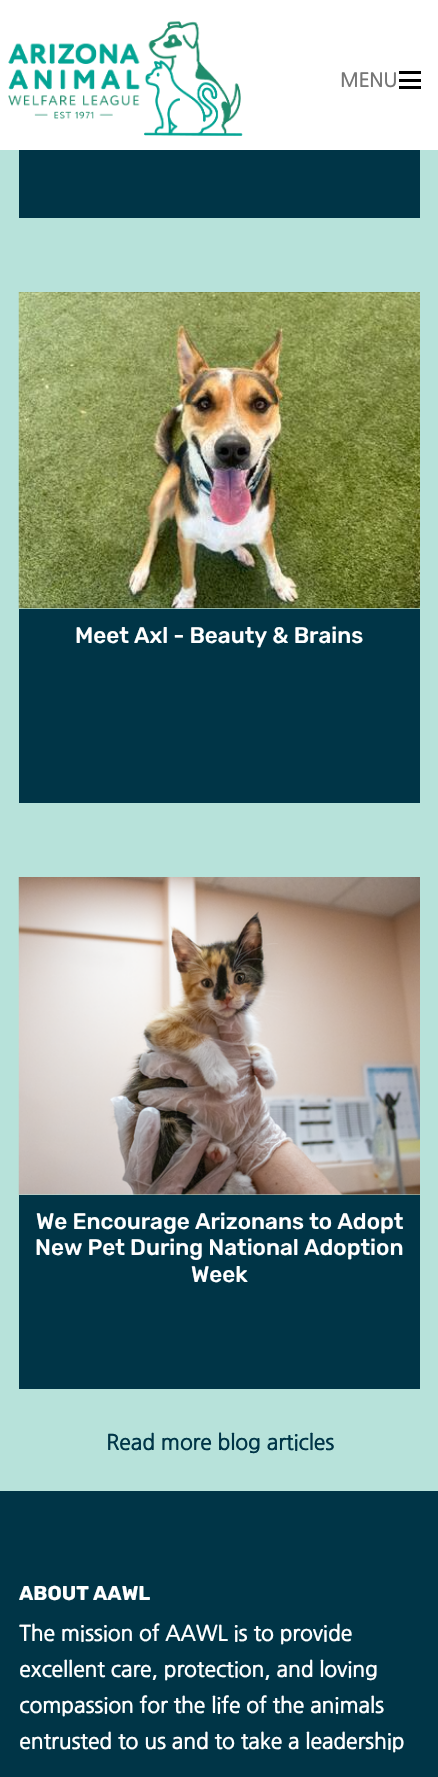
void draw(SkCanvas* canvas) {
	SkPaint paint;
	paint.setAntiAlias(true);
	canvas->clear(0xffb7e2da);
	paint.setColor(0xffffffff);
	canvas->drawRect(SkRect::MakeXYWH(0, 0, 438, 150), paint);
	canvas->drawImageRect(SkImages::DeferredFromEncodedData(SkData::MakeFromFileName("img1.png")), SkRect::MakeXYWH(8, 21, 235, 115), SkSamplingOptions());
	paint.setColor(0xff000000);
	canvas->drawRect(SkRect::MakeXYWH(399, 86, 22, 3), paint);
	canvas->drawRect(SkRect::MakeXYWH(399, 79, 22, 3), paint);
	canvas->drawRect(SkRect::MakeXYWH(399, 71, 22, 3), paint);
	SkFont f1(fontMgr->matchFamilyStyle("NanumGothic", SkFontStyle::Bold()), 19);
	f1.setSubpixel(true);
	paint.setColor(0xff777777);
	canvas->drawString("MENU", 340, 87, f1, paint);
	paint.setColor(0xff003547);
	canvas->drawRect(SkRect::MakeXYWH(19, 150, 401, 68), paint);
	canvas->drawImageRect(SkImages::DeferredFromEncodedData(SkData::MakeFromFileName("img2.png")), SkRect::MakeXYWH(18, 292, 402, 317), SkSamplingOptions());
	canvas->drawRect(SkRect::MakeXYWH(19, 609, 401, 194), paint);
	SkFont f2(fontMgr->matchFamilyStyle("Rubik", SkFontStyle(500, SkFontStyle::kNormal_Width, SkFontStyle::kUpright_Slant)), 22.5);
	f2.setSubpixel(true);
	paint.setColor(0xffffffff);
	canvas->drawString("Meet Axl - Beauty & Brains", 75, 643, f2, paint);
	canvas->drawImageRect(SkImages::DeferredFromEncodedData(SkData::MakeFromFileName("img3.png")), SkRect::MakeXYWH(18, 877, 402, 318), SkSamplingOptions());
	paint.setColor(0xff003547);
	canvas->drawRect(SkRect::MakeXYWH(19, 1195, 401, 194), paint);
	paint.setColor(0xffffffff);
	canvas->drawString("We Encourage Arizonans to Adopt", 36, 1229, f2, paint);
	canvas->drawString("New Pet During National Adoption", 35, 1255, f2, paint);
	canvas->drawString("Week", 191, 1282, f2, paint);
	SkFont f3(fontMgr->matchFamilyStyle("NanumGothic", SkFontStyle::Bold()), 21);
	f3.setSubpixel(true);
	paint.setColor(0xff003547);
	canvas->drawString("Read more blog articles", 106, 1450, f3, paint);
	canvas->drawRect(SkRect::MakeXYWH(0, 1491, 438, 286), paint);
	SkFont f4(fontMgr->matchFamilyStyle("Rubik", SkFontStyle::Bold()), 20);
	f4.setSubpixel(true);
	paint.setColor(0xffffffff);
	canvas->drawString("ABOUT AAWL", 19, 1600, f4, paint);
	canvas->drawString("The mission of AAWL is to provide", 19, 1641, f3, paint);
	canvas->drawString("excellent care, protection, and loving", 19, 1677, f3, paint);
	canvas->drawString("compassion for the life of the animals", 19, 1713, f3, paint);
	canvas->drawString("entrusted to us and to take a leadership", 19, 1749, f3, paint);
}
